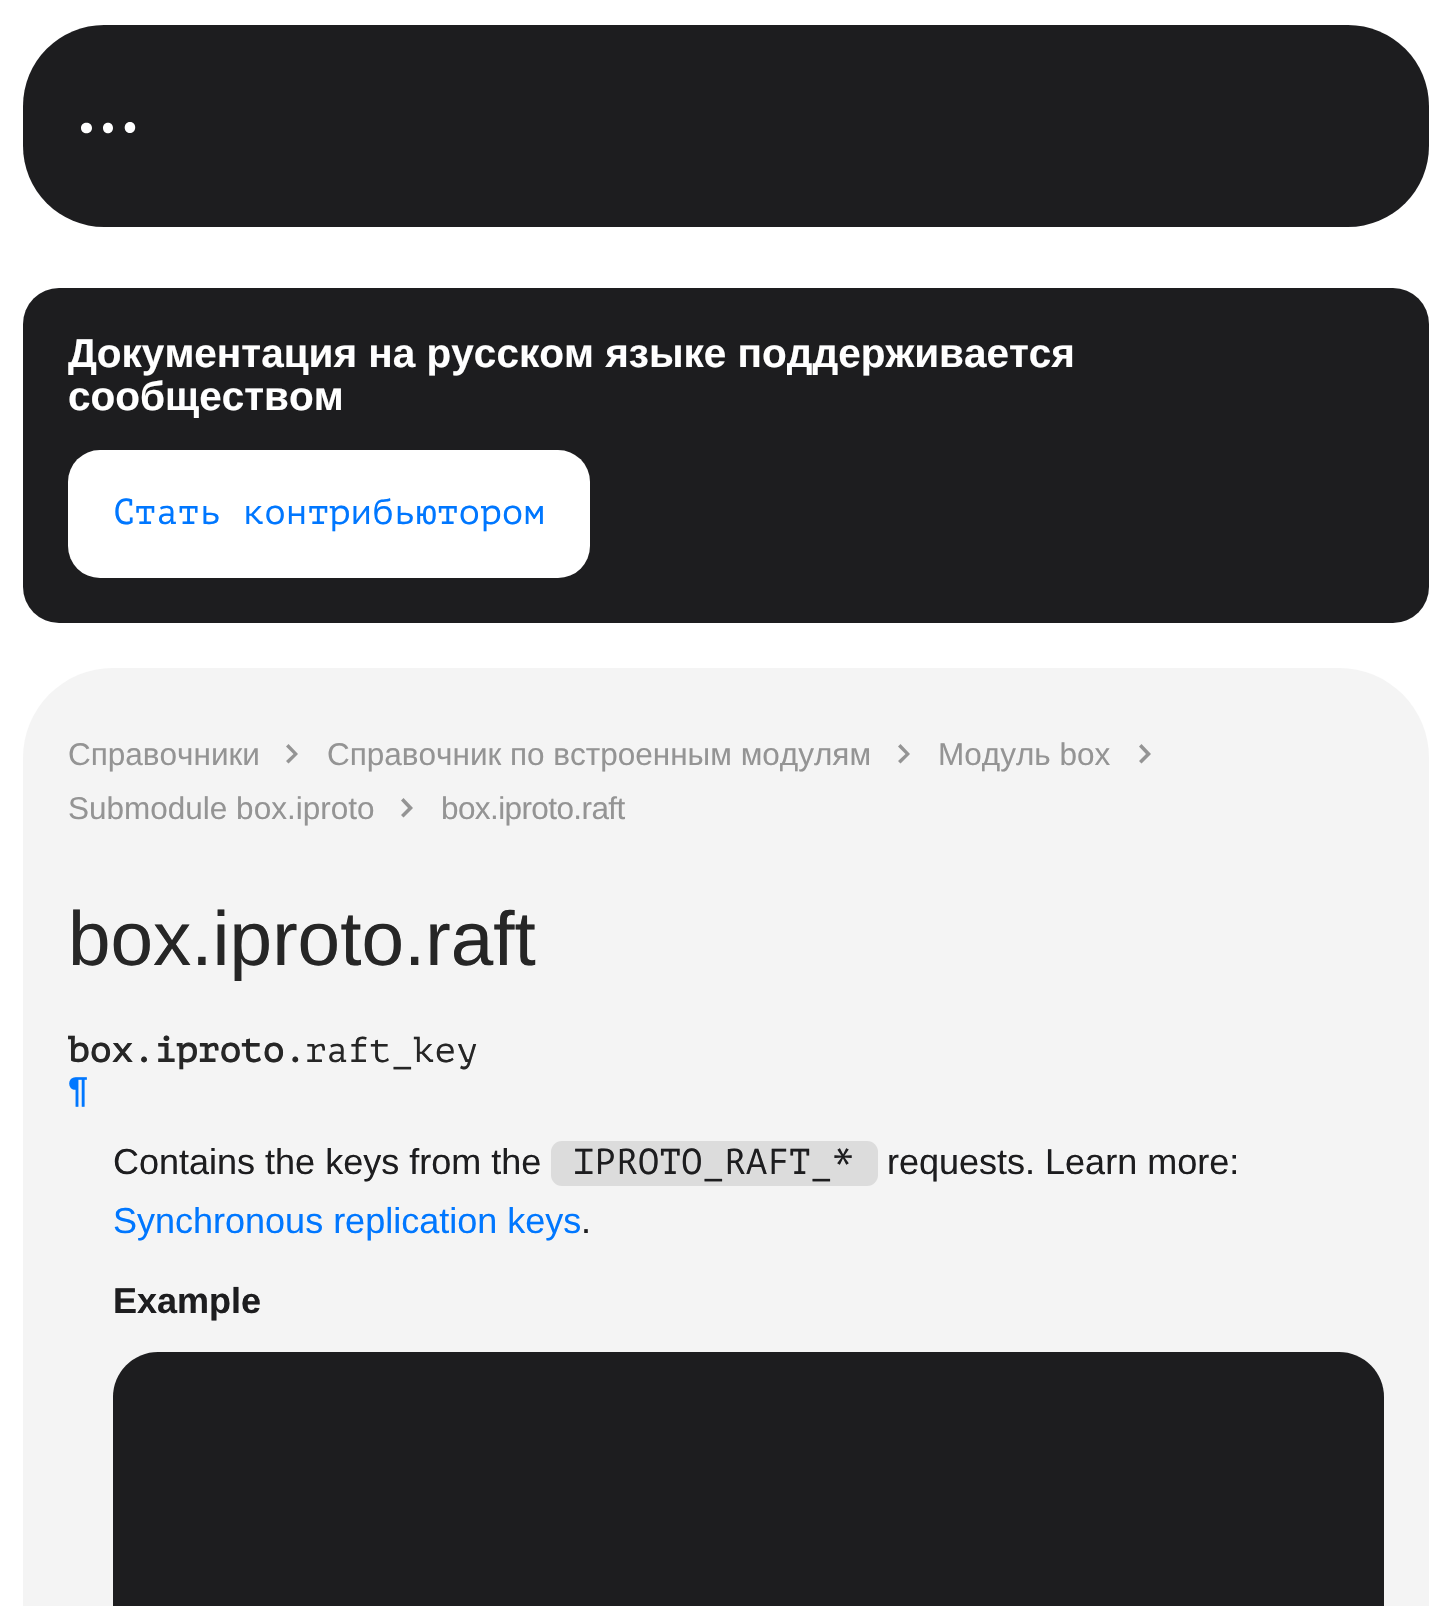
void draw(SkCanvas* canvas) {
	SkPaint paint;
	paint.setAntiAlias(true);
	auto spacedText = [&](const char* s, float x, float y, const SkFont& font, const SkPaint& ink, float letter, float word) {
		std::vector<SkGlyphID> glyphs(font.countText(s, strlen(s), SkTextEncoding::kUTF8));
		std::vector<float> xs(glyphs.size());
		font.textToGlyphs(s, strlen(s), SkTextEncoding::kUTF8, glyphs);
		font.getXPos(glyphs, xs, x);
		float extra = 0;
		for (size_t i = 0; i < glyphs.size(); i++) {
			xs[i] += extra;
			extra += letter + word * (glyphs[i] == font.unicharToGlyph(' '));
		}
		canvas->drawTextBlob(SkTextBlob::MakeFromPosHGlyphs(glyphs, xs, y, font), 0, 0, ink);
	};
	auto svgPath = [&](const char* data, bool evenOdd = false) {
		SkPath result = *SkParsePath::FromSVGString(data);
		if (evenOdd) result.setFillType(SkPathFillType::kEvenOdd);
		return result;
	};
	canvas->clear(0xffffffff);
	paint.setColor(0xff1d1d1f);
	canvas->drawRoundRect(SkRect::MakeXYWH(23, 25, 1406, 202), 81, 81, paint);
	paint.setColor(0xffffffff);
	canvas->drawPath(svgPath("M81 128C81 121 92 121 92 128C92 135 81 135 81 128ZM103 128C103 121 113 121 113 128C113 135 103 135 103 128ZM130 122C123 122 123 133 130 133C137 133 137 122 130 122Z", true), paint);
	paint.setColor(0xff1d1d1f);
	canvas->drawRoundRect(SkRect::MakeXYWH(23, 288, 1406, 335), 36, 36, paint);
	SkFont f1(fontMgr->matchFamilyStyle("Liberation Sans", SkFontStyle::Bold()), 40.5);
	f1.setSubpixel(true);
	paint.setColor(0xffffffff);
	canvas->drawString("Документация на русском языке поддерживается", 68, 367, f1, paint);
	canvas->drawString("сообществом", 68, 410, f1, paint);
	canvas->drawRoundRect(SkRect::MakeXYWH(68, 450, 522, 128), 32, 32, paint);
	SkFont f2(fontMgr->matchFamilyStyle("PT Mono", SkFontStyle::Normal()), 36);
	f2.setSubpixel(true);
	paint.setColor(0xff0077ff);
	canvas->drawString("Стать контрибьютором", 113, 524, f2, paint);
	paint.setColor(0xfff4f4f4);
	canvas->drawRoundRect(SkRect::MakeXYWH(23, 668, 1406, 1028), 90, 90, paint);
	SkFont f3(fontMgr->matchFamilyStyle("Liberation Sans", SkFontStyle::Normal()), 31.5);
	f3.setSubpixel(true);
	paint.setColor(0xff949494);
	canvas->drawString("Справочники", 68, 765, f3, paint);
	canvas->drawPath(svgPath("M286 761L288.5 763.5L298 754L288.5 744L286 746.5L293.5 754Z"), paint);
	canvas->drawString("Справочник по встроенным модулям", 327, 765, f3, paint);
	canvas->drawPath(svgPath("M898 761L900.5 763.5L910 754L900.5 744L898 746.5L905.5 754Z"), paint);
	canvas->drawString("Модуль box", 938, 765, f3, paint);
	canvas->drawPath(svgPath("M1139 761L1141.5 763.5L1151 754L1141.5 744L1139 746.5L1146 754Z"), paint);
	canvas->drawString("Submodule box.iproto", 68, 819, f3, paint);
	canvas->drawPath(svgPath("M401 815L403.5 817.5L413 808L403.5 798L401 800.5L408 808Z"), paint);
	spacedText("box.iproto.raft", 441, 819, f3, paint, -0.6, 0);
	SkFont f4(fontMgr->matchFamilyStyle("Liberation Sans", SkFontStyle::Normal()), 76.5);
	f4.setSubpixel(true);
	paint.setColor(0xff262626);
	canvas->drawString("box.iproto.raft", 68, 965, f4, paint);
	SkFont f5(fontMgr->matchFamilyStyle("PT Mono", SkFontStyle::Bold()), 36);
	f5.setSubpixel(true);
	canvas->drawString("box.iproto.", 68, 1062, f5, paint);
	canvas->drawString("raft_key", 305, 1062, f2, paint);
	SkFont f6(fontMgr->matchFamilyStyle("Liberation Sans", SkFontStyle::Bold()), 36);
	f6.setSubpixel(true);
	paint.setColor(0xff0077ff);
	canvas->drawString("¶", 68, 1102, f6, paint);
	SkFont f7(fontMgr->matchFamilyStyle("Liberation Sans", SkFontStyle::Normal()), 36);
	f7.setSubpixel(true);
	paint.setColor(0xff1d1d1f);
	canvas->drawString("Contains the keys from the", 113, 1174, f7, paint);
	paint.setColor(0xffdcdcdc);
	canvas->drawRoundRect(SkRect::MakeXYWH(551, 1141, 327, 45), 11, 11, paint);
	paint.setColor(0xff1d1d1f);
	canvas->drawString("IPROTO_RAFT_*", 573, 1174, f2, paint);
	canvas->drawString("requests. Learn more:", 887, 1174, f7, paint);
	paint.setColor(0xff0077ff);
	canvas->drawString("Synchronous replication keys", 113, 1233, f7, paint);
	paint.setColor(0xff1d1d1f);
	canvas->drawString(".", 581, 1233, f7, paint);
	canvas->drawString("Example", 113, 1313, f6, paint);
	canvas->drawRoundRect(SkRect::MakeXYWH(113, 1352, 1271, 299), 45, 45, paint);
}
